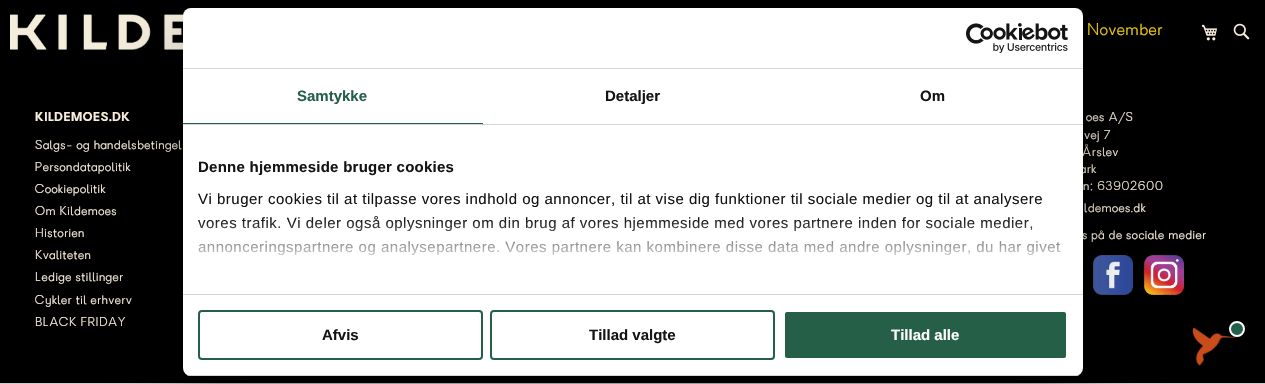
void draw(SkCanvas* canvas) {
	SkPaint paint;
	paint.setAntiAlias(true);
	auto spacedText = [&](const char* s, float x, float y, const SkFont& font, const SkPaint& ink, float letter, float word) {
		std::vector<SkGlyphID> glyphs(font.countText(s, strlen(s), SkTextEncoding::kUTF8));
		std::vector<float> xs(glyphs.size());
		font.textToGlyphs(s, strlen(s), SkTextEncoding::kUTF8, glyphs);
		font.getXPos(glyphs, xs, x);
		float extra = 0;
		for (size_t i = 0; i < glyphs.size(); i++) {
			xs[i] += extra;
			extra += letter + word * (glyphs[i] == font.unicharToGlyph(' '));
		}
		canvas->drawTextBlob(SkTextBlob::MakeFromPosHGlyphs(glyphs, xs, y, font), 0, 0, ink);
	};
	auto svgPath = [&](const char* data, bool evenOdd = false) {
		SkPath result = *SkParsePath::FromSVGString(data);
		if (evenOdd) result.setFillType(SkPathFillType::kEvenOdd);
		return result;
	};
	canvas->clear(0xff000000);
	canvas->drawImageRect(SkImages::DeferredFromEncodedData(SkData::MakeFromFileName("img1.png")), SkRect::MakeXYWH(10, 14, 174, 36), SkSamplingOptions());
	SkFont f1(fontMgr->matchFamilyStyle("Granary", SkFontStyle(300, SkFontStyle::kNormal_Width, SkFontStyle::kUpright_Slant)), 16);
	f1.setSubpixel(true);
	paint.setColor(0xffeecc14);
	spacedText("November", 1087, 35, f1, paint, 0.5, 0);
	canvas->drawImageRect(SkImages::DeferredFromEncodedData(SkData::MakeFromFileName("img2.png")), SkRect::MakeXYWH(1201, 24, 16, 17), SkSamplingOptions());
	canvas->drawImageRect(SkImages::DeferredFromEncodedData(SkData::MakeFromFileName("img3.png")), SkRect::MakeXYWH(1233, 23, 17, 17), SkSamplingOptions());
	SkFont f2(fontMgr->matchFamilyStyle("Granary", SkFontStyle::Bold()), 12);
	f2.setSubpixel(true);
	paint.setColor(0xfff9eddc);
	spacedText("KILDEMOES.DK", 35, 121, f2, paint, 0.5, 0);
	SkFont f3(fontMgr->matchFamilyStyle("Granary", SkFontStyle(300, SkFontStyle::kNormal_Width, SkFontStyle::kUpright_Slant)), 12);
	f3.setSubpixel(true);
	spacedText("Salgs- og handelsbetingel", 35, 149, f3, paint, 0.5, 0);
	spacedText("Persondatapolitik", 35, 171, f3, paint, 0.5, 0);
	spacedText("Cookiepolitik", 35, 193, f3, paint, 0.5, 0);
	spacedText("Om Kildemoes", 35, 215, f3, paint, 0.5, 0);
	spacedText("Historien", 35, 237, f3, paint, 0.5, 0);
	spacedText("Kvaliteten", 35, 259, f3, paint, 0.5, 0);
	spacedText("Ledige stillinger", 35, 281, f3, paint, 0.5, 0);
	spacedText("Cykler til erhverv", 35, 304, f3, paint, 0.5, 0);
	spacedText("BLACK FRIDAY", 35, 326, f3, paint, 0.5, 0);
	spacedText("oes A/S", 1086, 121, f3, paint, 0.5, 0);
	spacedText("vej 7", 1084, 139, f3, paint, 0.5, 0);
	spacedText("Årslev", 1082, 156, f3, paint, 0.5, 0);
	spacedText("ark", 1080, 173, f3, paint, 0.5, 0);
	spacedText("n: 63902600", 1083, 190, f3, paint, 0.5, 0);
	spacedText("ldemoes.dk", 1084, 212, f3, paint, 0.5, 0);
	spacedText("s på de sociale medier", 1082, 239, f3, paint, 0.5, 0);
	canvas->drawImageRect(SkImages::DeferredFromEncodedData(SkData::MakeFromFileName("img4.png")), SkRect::MakeXYWH(1093, 255, 40, 40), SkSamplingOptions());
	canvas->drawImageRect(SkImages::DeferredFromEncodedData(SkData::MakeFromFileName("img5.png")), SkRect::MakeXYWH(1144, 255, 40, 40), SkSamplingOptions());
	paint.setColor(0xffcccccc);
	canvas->drawRect(SkRect::MakeXYWH(0, 383, 1265, 1), paint);
	paint.setColor(0x4d000000);
	paint.setMaskFilter(SkMaskFilter::MakeBlur(kNormal_SkBlurStyle, 34));
	canvas->drawRoundRect(SkRect::MakeXYWH(183, 40, 900, 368), 8, 8, paint);
	paint.setMaskFilter(nullptr);
	paint.setColor(0xffffffff);
	canvas->drawRoundRect(SkRect::MakeXYWH(183, 8, 900, 368), 8, 8, paint);
	paint.setColor(0xffd6d6d6);
	canvas->drawRect(SkRect::MakeXYWH(183, 68, 900, 1), paint);
	canvas->drawImageRect(SkImages::DeferredFromEncodedData(SkData::MakeFromFileName("img6.png")), SkRect::MakeXYWH(966, 23, 102, 30), SkSamplingOptions());
	canvas->drawRect(SkRect::MakeXYWH(183, 124, 900, 1), paint);
	paint.setColor(0xff255f47);
	canvas->drawRect(SkRect::MakeXYWH(183, 123, 300, 1), paint);
	SkFont f4(fontMgr->matchFamilyStyle("Liberation Sans", SkFontStyle::Bold()), 15);
	f4.setSubpixel(true);
	canvas->drawString("Samtykke", 297, 101, f4, paint);
	paint.setColor(0xff141414);
	canvas->drawString("Detaljer", 605, 101, f4, paint);
	canvas->drawString("Om", 920, 101, f4, paint);
	paint.setColor(0xffd6d6d6);
	canvas->drawRect(SkRect::MakeXYWH(183, 294, 900, 1), paint);
	paint.setColor(0xff141414);
	spacedText("Denne hjemmeside bruger cookies", 198, 172, f4, paint, 0.25, 0);
	SkFont f5(fontMgr->matchFamilyStyle("Liberation Sans", SkFontStyle::Normal()), 15);
	f5.setSubpixel(true);
	spacedText("Vi bruger cookies til at tilpasse vores indhold og annoncer, til at vise dig funktioner til sociale medier og til at analysere", 198, 204, f5, paint, 0.5, 0);
	spacedText("vores trafik. Vi deler også oplysninger om din brug af vores hjemmeside med vores partnere inden for sociale medier,", 198, 228, f5, paint, 0.5, 0);
	spacedText("annonceringspartnere og analysepartnere. Vores partnere kan kombinere disse data med andre oplysninger, du har givet", 198, 252, f5, paint, 0.5, 0);
	{
		const SkColor colors[] = {0xffffffff, 0xccffffff, 0x00ffffff};
		const float stops[] = {0, 0.5, 1};
		const SkPoint ends[] = {{627, 294}, {627, 219}};
		paint.setShader(SkGradientShader::MakeLinear(ends, colors, stops, 3, SkTileMode::kClamp));
		paint.setAlpha(255);
	}
	canvas->drawRect(SkRect::MakeXYWH(198, 220, 862, 36), paint);
	canvas->save();
	canvas->clipPath(svgPath("M191 8H1075C1079.5 8 1083 11.5 1083 16V368C1083 372.5 1079.5 376 1075 376H191C186.5 376 183 372.5 183 368V16C183 11.5 186.5 8 191 8Z"), true);
	paint.setShader(nullptr);
	paint.setColor(0xffd6d6d6);
	canvas->drawRect(SkRect::MakeXYWH(183, 375, 900, 1), paint);
	canvas->restore();
	paint.setStroke(true);
	paint.setStrokeWidth(2);
	paint.setColor(0xff255f47);
	canvas->drawRoundRect(SkRect::MakeXYWH(199, 311, 283, 48), 3, 3, paint);
	paint.setStroke(false);
	paint.setColor(0xff141414);
	canvas->drawString("Afvis", 322, 340, f4, paint);
	paint.setStroke(true);
	paint.setColor(0xff255f47);
	canvas->drawRoundRect(SkRect::MakeXYWH(491, 311, 283, 48), 3, 3, paint);
	paint.setStroke(false);
	paint.setColor(0xff141414);
	canvas->drawString("Tillad valgte", 589, 340, f4, paint);
	paint.setColor(0xff255f47);
	canvas->drawRoundRect(SkRect::MakeXYWH(784, 311, 283, 48), 3, 3, paint);
	paint.setStroke(true);
	paint.setColor(0xffffffff);
	canvas->drawRoundRect(SkRect::MakeXYWH(784, 311, 283, 48), 3, 3, paint);
	paint.setStroke(false);
	canvas->drawString("Tillad alle", 891, 340, f4, paint);
	canvas->drawImageRect(SkImages::DeferredFromEncodedData(SkData::MakeFromFileName("img7.png")), SkRect::MakeXYWH(1192, 327, 44, 39), SkSamplingOptions());
	paint.setColor(0xff22604a);
	canvas->drawCircle(1237, 329, 7, paint);
	paint.setStroke(true);
	paint.setColor(0xffffffff);
	canvas->drawCircle(1237, 329, 7, paint);
}
